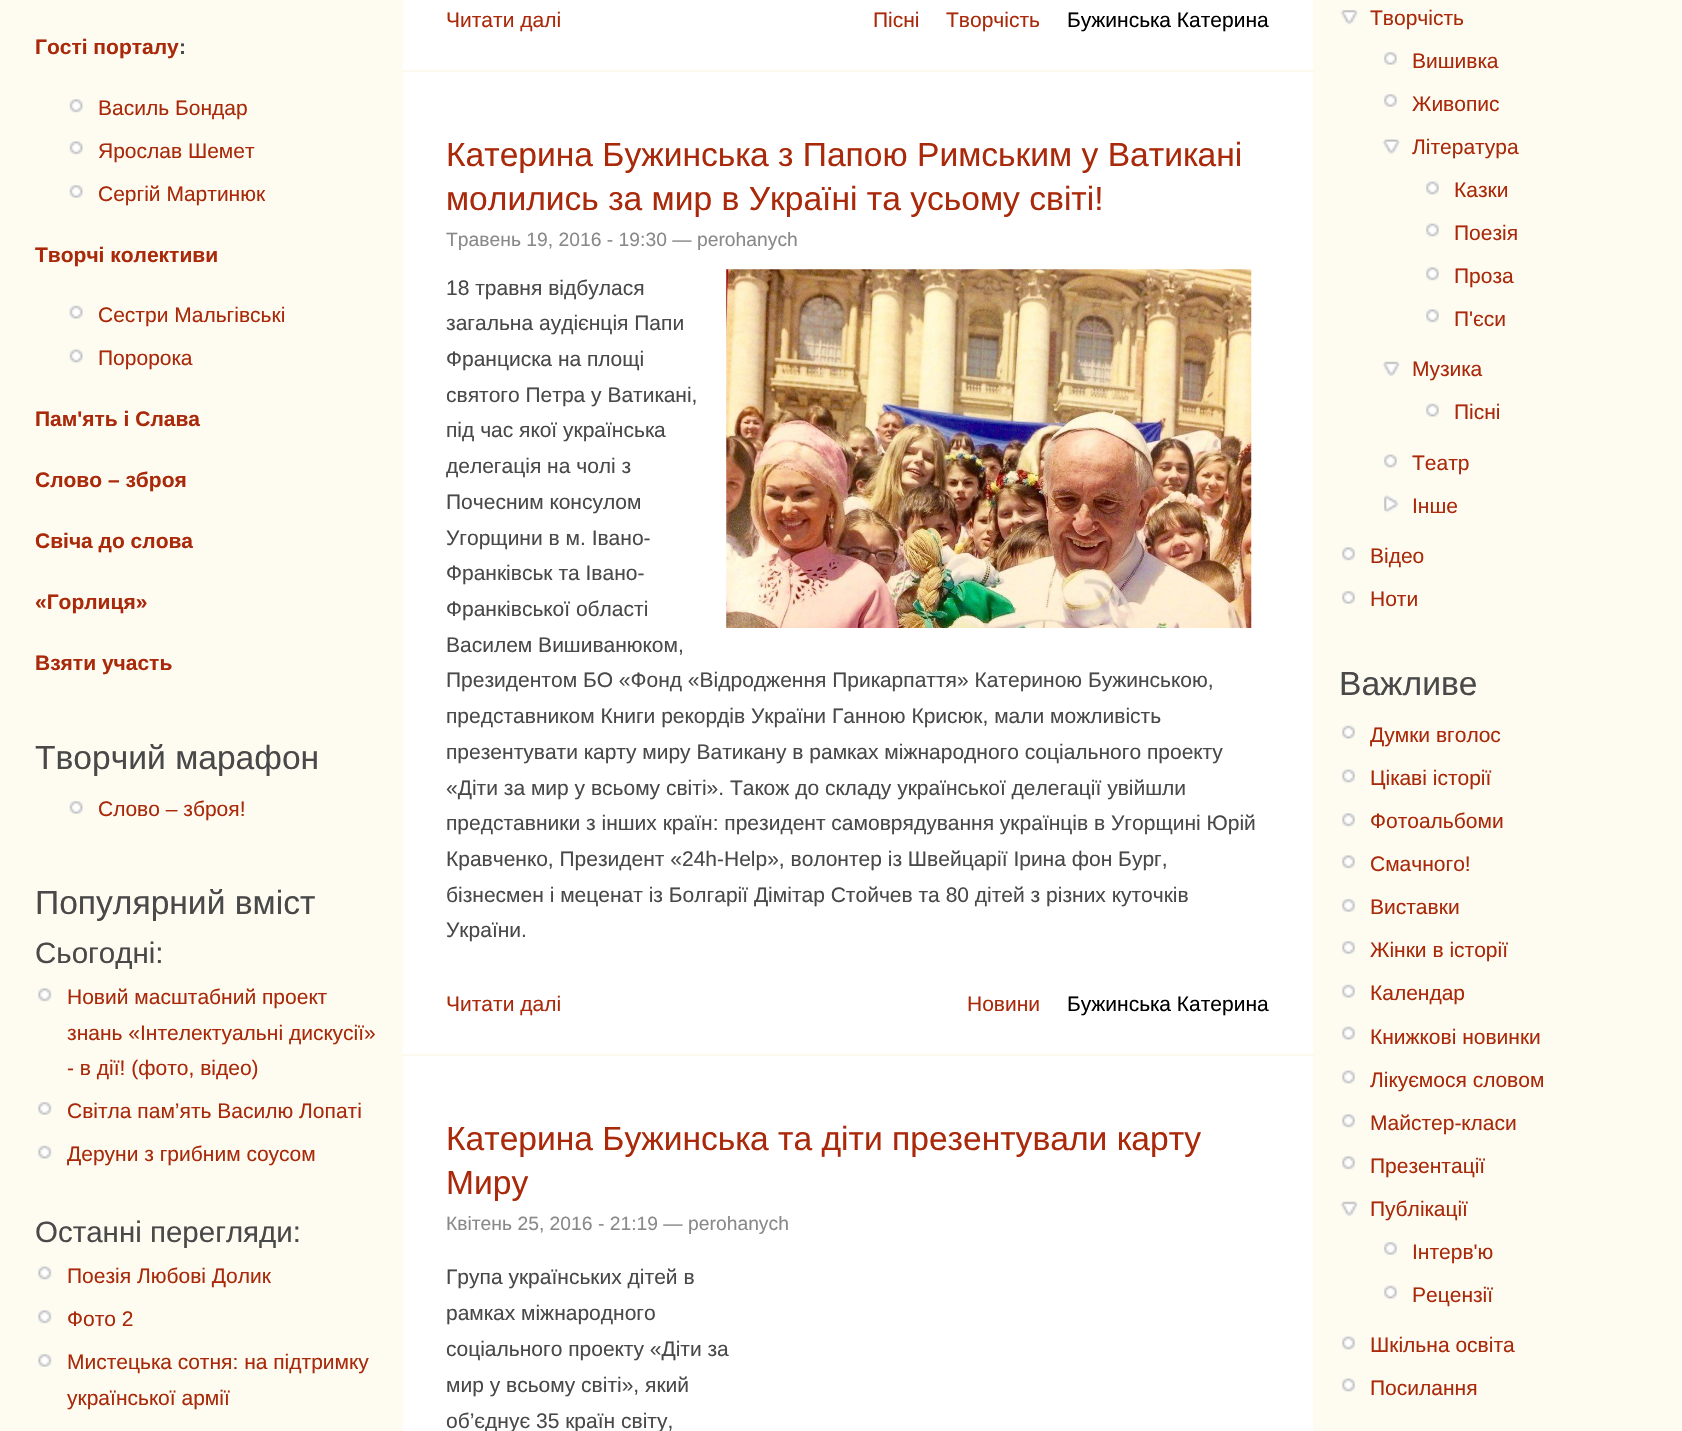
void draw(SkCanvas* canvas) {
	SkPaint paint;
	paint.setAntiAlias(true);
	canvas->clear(0xfffefcf1);
	SkFont f1(fontMgr->matchFamilyStyle("Liberation Sans", SkFontStyle::Bold()), 21);
	f1.setSubpixel(true);
	paint.setColor(0xffa9290a);
	canvas->drawString("Гості порталу", 35, 54, f1, paint);
	paint.setColor(0xff494949);
	canvas->drawString(":", 179, 54, f1, paint);
	canvas->drawImageRect(SkImages::DeferredFromEncodedData(SkData::MakeFromFileName("img1.png")), SkRect::MakeXYWH(69, 99, 14, 14), SkSamplingOptions());
	SkFont f2(fontMgr->matchFamilyStyle("Liberation Sans", SkFontStyle::Normal()), 21);
	f2.setSubpixel(true);
	paint.setColor(0xffa9290a);
	canvas->drawString("Василь Бондар", 98, 115, f2, paint);
	canvas->drawImageRect(SkImages::DeferredFromEncodedData(SkData::MakeFromFileName("img1.png")), SkRect::MakeXYWH(69, 141, 14, 14), SkSamplingOptions());
	canvas->drawString("Ярослав Шемет", 98, 158, f2, paint);
	canvas->drawImageRect(SkImages::DeferredFromEncodedData(SkData::MakeFromFileName("img2.png")), SkRect::MakeXYWH(69, 185, 14, 13), SkSamplingOptions());
	canvas->drawString("Сергій Мартинюк", 98, 201, f2, paint);
	canvas->drawString("Творчі колективи", 35, 262, f1, paint);
	canvas->drawImageRect(SkImages::DeferredFromEncodedData(SkData::MakeFromFileName("img3.png")), SkRect::MakeXYWH(69, 305, 14, 14), SkSamplingOptions());
	canvas->drawString("Сестри Мальгівські", 98, 322, f2, paint);
	canvas->drawImageRect(SkImages::DeferredFromEncodedData(SkData::MakeFromFileName("img4.png")), SkRect::MakeXYWH(69, 349, 14, 14), SkSamplingOptions());
	canvas->drawString("Поророка", 98, 365, f2, paint);
	canvas->drawString("Пам'ять і Слава", 35, 426, f1, paint);
	canvas->drawString("Слово – зброя", 35, 487, f1, paint);
	canvas->drawString("Свіча до слова", 35, 548, f1, paint);
	canvas->drawString("«Горлиця»", 35, 609, f1, paint);
	canvas->drawString("Взяти участь", 35, 670, f1, paint);
	SkFont f3(fontMgr->matchFamilyStyle("Liberation Sans", SkFontStyle::Normal()), 33.6);
	f3.setSubpixel(true);
	paint.setColor(0xff494949);
	canvas->drawString("Творчий марафон", 35, 769, f3, paint);
	canvas->drawImageRect(SkImages::DeferredFromEncodedData(SkData::MakeFromFileName("img2.png")), SkRect::MakeXYWH(69, 801, 14, 13), SkSamplingOptions());
	paint.setColor(0xffa9290a);
	canvas->drawString("Слово – зброя!", 98, 816, f2, paint);
	paint.setColor(0xff494949);
	canvas->drawString("Популярний вміст", 35, 914, f3, paint);
	SkFont f4(fontMgr->matchFamilyStyle("Liberation Sans", SkFontStyle::Normal()), 29.5);
	f4.setSubpixel(true);
	canvas->drawString("Сьогодні:", 35, 963, f4, paint);
	canvas->drawImageRect(SkImages::DeferredFromEncodedData(SkData::MakeFromFileName("img5.png")), SkRect::MakeXYWH(38, 988, 14, 14), SkSamplingOptions());
	paint.setColor(0xffa9290a);
	canvas->drawString("Новий масштабний проект", 67, 1004, f2, paint);
	canvas->drawString("знань «Інтелектуальні дискусії»", 67, 1040, f2, paint);
	canvas->drawString("- в дії! (фото, відео)", 67, 1075, f2, paint);
	canvas->drawImageRect(SkImages::DeferredFromEncodedData(SkData::MakeFromFileName("img6.png")), SkRect::MakeXYWH(38, 1102, 14, 13), SkSamplingOptions());
	canvas->drawString("Світла пам’ять Василю Лопаті", 67, 1118, f2, paint);
	canvas->drawImageRect(SkImages::DeferredFromEncodedData(SkData::MakeFromFileName("img7.png")), SkRect::MakeXYWH(38, 1145, 14, 14), SkSamplingOptions());
	canvas->drawString("Деруни з грибним соусом", 67, 1161, f2, paint);
	paint.setColor(0xff494949);
	canvas->drawString("Останні перегляди:", 35, 1242, f4, paint);
	canvas->drawImageRect(SkImages::DeferredFromEncodedData(SkData::MakeFromFileName("img8.png")), SkRect::MakeXYWH(38, 1266, 14, 14), SkSamplingOptions());
	paint.setColor(0xffa9290a);
	canvas->drawString("Поезія Любові Долик", 67, 1283, f2, paint);
	canvas->drawImageRect(SkImages::DeferredFromEncodedData(SkData::MakeFromFileName("img9.png")), SkRect::MakeXYWH(38, 1310, 14, 14), SkSamplingOptions());
	canvas->drawString("Фото 2", 67, 1326, f2, paint);
	canvas->drawImageRect(SkImages::DeferredFromEncodedData(SkData::MakeFromFileName("img6.png")), SkRect::MakeXYWH(38, 1354, 14, 13), SkSamplingOptions());
	canvas->drawString("Мистецька сотня: на підтримку", 67, 1369, f2, paint);
	canvas->drawString("української армії", 67, 1405, f2, paint);
	paint.setColor(0xffffffff);
	canvas->drawRect(SkRect::MakeXYWH(403, 0, 910, 1431), paint);
	paint.setColor(0xfffcfaec);
	canvas->drawRect(SkRect::MakeXYWH(401, 70, 913, 2), paint);
	paint.setColor(0xffa9290a);
	canvas->drawString("Читати далі", 446, 27, f2, paint);
	canvas->drawString("Пісні", 873, 27, f2, paint);
	canvas->drawString("Творчість", 946, 27, f2, paint);
	paint.setColor(0xff000000);
	canvas->drawString("Бужинська Катерина", 1067, 27, f2, paint);
	paint.setColor(0xfffcfaec);
	canvas->drawRect(SkRect::MakeXYWH(401, 1054, 913, 2), paint);
	paint.setColor(0xffa9290a);
	canvas->drawString("Катерина Бужинська з Папою Римським у Ватикані", 446, 166, f3, paint);
	canvas->drawString("молились за мир в Україні та усьому світі!", 446, 210, f3, paint);
	SkFont f5(fontMgr->matchFamilyStyle("Liberation Sans", SkFontStyle::Normal()), 19.3);
	f5.setSubpixel(true);
	paint.setColor(0xff898989);
	canvas->drawString("Травень 19, 2016 - 19:30 — perohanych", 446, 246, f5, paint);
	paint.setColor(0xff494949);
	canvas->drawString("18 травня відбулася", 446, 295, f2, paint);
	canvas->drawImageRect(SkImages::DeferredFromEncodedData(SkData::MakeFromFileName("img10.png")), SkRect::MakeXYWH(726, 269, 526, 359), SkSamplingOptions());
	canvas->drawString("загальна аудієнція Папи", 446, 330, f2, paint);
	canvas->drawString("Франциска на площі", 446, 366, f2, paint);
	canvas->drawString("святого Петра у Ватикані,", 446, 402, f2, paint);
	canvas->drawString("під час якої українська", 446, 437, f2, paint);
	canvas->drawString("делегація на чолі з", 446, 473, f2, paint);
	canvas->drawString("Почесним консулом", 446, 509, f2, paint);
	canvas->drawString("Угорщини в м. Івано-", 446, 545, f2, paint);
	canvas->drawString("Франківськ та Івано-", 446, 580, f2, paint);
	canvas->drawString("Франківської області", 446, 616, f2, paint);
	canvas->drawString("Василем Вишиванюком,", 446, 652, f2, paint);
	canvas->drawString("Президентом БО «Фонд «Відродження Прикарпаття» Катериною Бужинською,", 446, 687, f2, paint);
	canvas->drawString("представником Книги рекордів України Ганною Крисюк, мали можливість", 446, 723, f2, paint);
	canvas->drawString("презентувати карту миру Ватикану в рамках міжнародного соціального проекту", 446, 759, f2, paint);
	canvas->drawString("«Діти за мир у всьому світі». Також до складу української делегації увійшли", 446, 795, f2, paint);
	canvas->drawString("представники з інших країн: президент самоврядування українців в Угорщині Юрій", 446, 830, f2, paint);
	canvas->drawString("Кравченко, Президент «24h-Help», волонтер із Швейцарії Ірина фон Бург,", 446, 866, f2, paint);
	canvas->drawString("бізнесмен і меценат із Болгарії Дімітар Стойчев та 80 дітей з різних куточків", 446, 902, f2, paint);
	canvas->drawString("України.", 446, 937, f2, paint);
	paint.setColor(0xffa9290a);
	canvas->drawString("Читати далі", 446, 1011, f2, paint);
	canvas->drawString("Новини", 967, 1011, f2, paint);
	paint.setColor(0xff000000);
	canvas->drawString("Бужинська Катерина", 1067, 1011, f2, paint);
	paint.setColor(0xffa9290a);
	canvas->drawString("Катерина Бужинська та діти презентували карту", 446, 1150, f3, paint);
	canvas->drawString("Миру", 446, 1194, f3, paint);
	paint.setColor(0xff898989);
	canvas->drawString("Квітень 25, 2016 - 21:19 — perohanych", 446, 1230, f5, paint);
	paint.setColor(0xff494949);
	canvas->drawString("Група українських дітей в", 446, 1284, f2, paint);
	canvas->drawString("рамках міжнародного", 446, 1320, f2, paint);
	canvas->drawString("соціального проекту «Діти за", 446, 1356, f2, paint);
	canvas->drawString("мир у всьому світі», який", 446, 1392, f2, paint);
	canvas->drawString("об’єднує 35 країн світу,", 446, 1428, f2, paint);
	canvas->drawImageRect(SkImages::DeferredFromEncodedData(SkData::MakeFromFileName("img11.png")), SkRect::MakeXYWH(1340, 10, 18, 15), SkSamplingOptions());
	paint.setColor(0xffa9290a);
	canvas->drawString("Творчість", 1370, 25, f2, paint);
	canvas->drawImageRect(SkImages::DeferredFromEncodedData(SkData::MakeFromFileName("img12.png")), SkRect::MakeXYWH(1384, 52, 13, 13), SkSamplingOptions());
	canvas->drawString("Вишивка", 1412, 68, f2, paint);
	canvas->drawImageRect(SkImages::DeferredFromEncodedData(SkData::MakeFromFileName("img12.png")), SkRect::MakeXYWH(1384, 94, 13, 13), SkSamplingOptions());
	canvas->drawString("Живопис", 1412, 111, f2, paint);
	canvas->drawImageRect(SkImages::DeferredFromEncodedData(SkData::MakeFromFileName("img13.png")), SkRect::MakeXYWH(1382, 139, 18, 15), SkSamplingOptions());
	canvas->drawString("Література", 1412, 154, f2, paint);
	canvas->drawImageRect(SkImages::DeferredFromEncodedData(SkData::MakeFromFileName("img14.png")), SkRect::MakeXYWH(1426, 181, 13, 14), SkSamplingOptions());
	canvas->drawString("Казки", 1454, 197, f2, paint);
	canvas->drawImageRect(SkImages::DeferredFromEncodedData(SkData::MakeFromFileName("img14.png")), SkRect::MakeXYWH(1426, 223, 13, 14), SkSamplingOptions());
	canvas->drawString("Поезія", 1454, 240, f2, paint);
	canvas->drawImageRect(SkImages::DeferredFromEncodedData(SkData::MakeFromFileName("img15.png")), SkRect::MakeXYWH(1426, 267, 13, 14), SkSamplingOptions());
	canvas->drawString("Проза", 1454, 283, f2, paint);
	canvas->drawImageRect(SkImages::DeferredFromEncodedData(SkData::MakeFromFileName("img15.png")), SkRect::MakeXYWH(1426, 309, 13, 14), SkSamplingOptions());
	canvas->drawString("П'єси", 1454, 326, f2, paint);
	canvas->drawImageRect(SkImages::DeferredFromEncodedData(SkData::MakeFromFileName("img16.png")), SkRect::MakeXYWH(1382, 361, 18, 15), SkSamplingOptions());
	canvas->drawString("Музика", 1412, 376, f2, paint);
	canvas->drawImageRect(SkImages::DeferredFromEncodedData(SkData::MakeFromFileName("img17.png")), SkRect::MakeXYWH(1426, 403, 13, 14), SkSamplingOptions());
	canvas->drawString("Пісні", 1454, 419, f2, paint);
	canvas->drawImageRect(SkImages::DeferredFromEncodedData(SkData::MakeFromFileName("img14.png")), SkRect::MakeXYWH(1384, 454, 13, 14), SkSamplingOptions());
	canvas->drawString("Театр", 1412, 470, f2, paint);
	canvas->drawImageRect(SkImages::DeferredFromEncodedData(SkData::MakeFromFileName("img18.png")), SkRect::MakeXYWH(1384, 495, 15, 18), SkSamplingOptions());
	canvas->drawString("Інше", 1412, 513, f2, paint);
	canvas->drawImageRect(SkImages::DeferredFromEncodedData(SkData::MakeFromFileName("img15.png")), SkRect::MakeXYWH(1342, 547, 13, 14), SkSamplingOptions());
	canvas->drawString("Відео", 1370, 563, f2, paint);
	canvas->drawImageRect(SkImages::DeferredFromEncodedData(SkData::MakeFromFileName("img12.png")), SkRect::MakeXYWH(1342, 591, 13, 13), SkSamplingOptions());
	canvas->drawString("Ноти", 1370, 606, f2, paint);
	paint.setColor(0xff494949);
	canvas->drawString("Важливе", 1339, 695, f3, paint);
	canvas->drawImageRect(SkImages::DeferredFromEncodedData(SkData::MakeFromFileName("img17.png")), SkRect::MakeXYWH(1342, 725, 13, 14), SkSamplingOptions());
	paint.setColor(0xffa9290a);
	canvas->drawString("Думки вголос", 1370, 742, f2, paint);
	canvas->drawImageRect(SkImages::DeferredFromEncodedData(SkData::MakeFromFileName("img14.png")), SkRect::MakeXYWH(1342, 769, 13, 14), SkSamplingOptions());
	canvas->drawString("Цікаві історії", 1370, 785, f2, paint);
	canvas->drawImageRect(SkImages::DeferredFromEncodedData(SkData::MakeFromFileName("img15.png")), SkRect::MakeXYWH(1342, 813, 13, 14), SkSamplingOptions());
	canvas->drawString("Фотоальбоми", 1370, 828, f2, paint);
	canvas->drawImageRect(SkImages::DeferredFromEncodedData(SkData::MakeFromFileName("img15.png")), SkRect::MakeXYWH(1342, 855, 13, 14), SkSamplingOptions());
	canvas->drawString("Смачного!", 1370, 871, f2, paint);
	canvas->drawImageRect(SkImages::DeferredFromEncodedData(SkData::MakeFromFileName("img12.png")), SkRect::MakeXYWH(1342, 899, 13, 13), SkSamplingOptions());
	canvas->drawString("Виставки", 1370, 914, f2, paint);
	canvas->drawImageRect(SkImages::DeferredFromEncodedData(SkData::MakeFromFileName("img12.png")), SkRect::MakeXYWH(1342, 941, 13, 13), SkSamplingOptions());
	canvas->drawString("Жінки в історії", 1370, 957, f2, paint);
	canvas->drawImageRect(SkImages::DeferredFromEncodedData(SkData::MakeFromFileName("img19.png")), SkRect::MakeXYWH(1342, 984, 13, 14), SkSamplingOptions());
	canvas->drawString("Календар", 1370, 1000, f2, paint);
	canvas->drawImageRect(SkImages::DeferredFromEncodedData(SkData::MakeFromFileName("img17.png")), SkRect::MakeXYWH(1342, 1026, 13, 14), SkSamplingOptions());
	canvas->drawString("Книжкові новинки", 1370, 1044, f2, paint);
	canvas->drawImageRect(SkImages::DeferredFromEncodedData(SkData::MakeFromFileName("img20.png")), SkRect::MakeXYWH(1342, 1070, 13, 14), SkSamplingOptions());
	canvas->drawString("Лікуємося словом", 1370, 1087, f2, paint);
	canvas->drawImageRect(SkImages::DeferredFromEncodedData(SkData::MakeFromFileName("img15.png")), SkRect::MakeXYWH(1342, 1114, 13, 14), SkSamplingOptions());
	canvas->drawString("Майстер-класи", 1370, 1130, f2, paint);
	canvas->drawImageRect(SkImages::DeferredFromEncodedData(SkData::MakeFromFileName("img15.png")), SkRect::MakeXYWH(1342, 1156, 13, 14), SkSamplingOptions());
	canvas->drawString("Презентації", 1370, 1173, f2, paint);
	canvas->drawImageRect(SkImages::DeferredFromEncodedData(SkData::MakeFromFileName("img16.png")), SkRect::MakeXYWH(1340, 1201, 18, 15), SkSamplingOptions());
	canvas->drawString("Публікації", 1370, 1216, f2, paint);
	canvas->drawImageRect(SkImages::DeferredFromEncodedData(SkData::MakeFromFileName("img12.png")), SkRect::MakeXYWH(1384, 1242, 13, 13), SkSamplingOptions());
	canvas->drawString("Інтерв'ю", 1412, 1259, f2, paint);
	canvas->drawImageRect(SkImages::DeferredFromEncodedData(SkData::MakeFromFileName("img17.png")), SkRect::MakeXYWH(1384, 1285, 13, 14), SkSamplingOptions());
	canvas->drawString("Рецензії", 1412, 1302, f2, paint);
	canvas->drawImageRect(SkImages::DeferredFromEncodedData(SkData::MakeFromFileName("img14.png")), SkRect::MakeXYWH(1342, 1336, 13, 14), SkSamplingOptions());
	canvas->drawString("Шкільна освіта", 1370, 1352, f2, paint);
	canvas->drawImageRect(SkImages::DeferredFromEncodedData(SkData::MakeFromFileName("img14.png")), SkRect::MakeXYWH(1342, 1378, 13, 14), SkSamplingOptions());
	canvas->drawString("Посилання", 1370, 1395, f2, paint);
}
